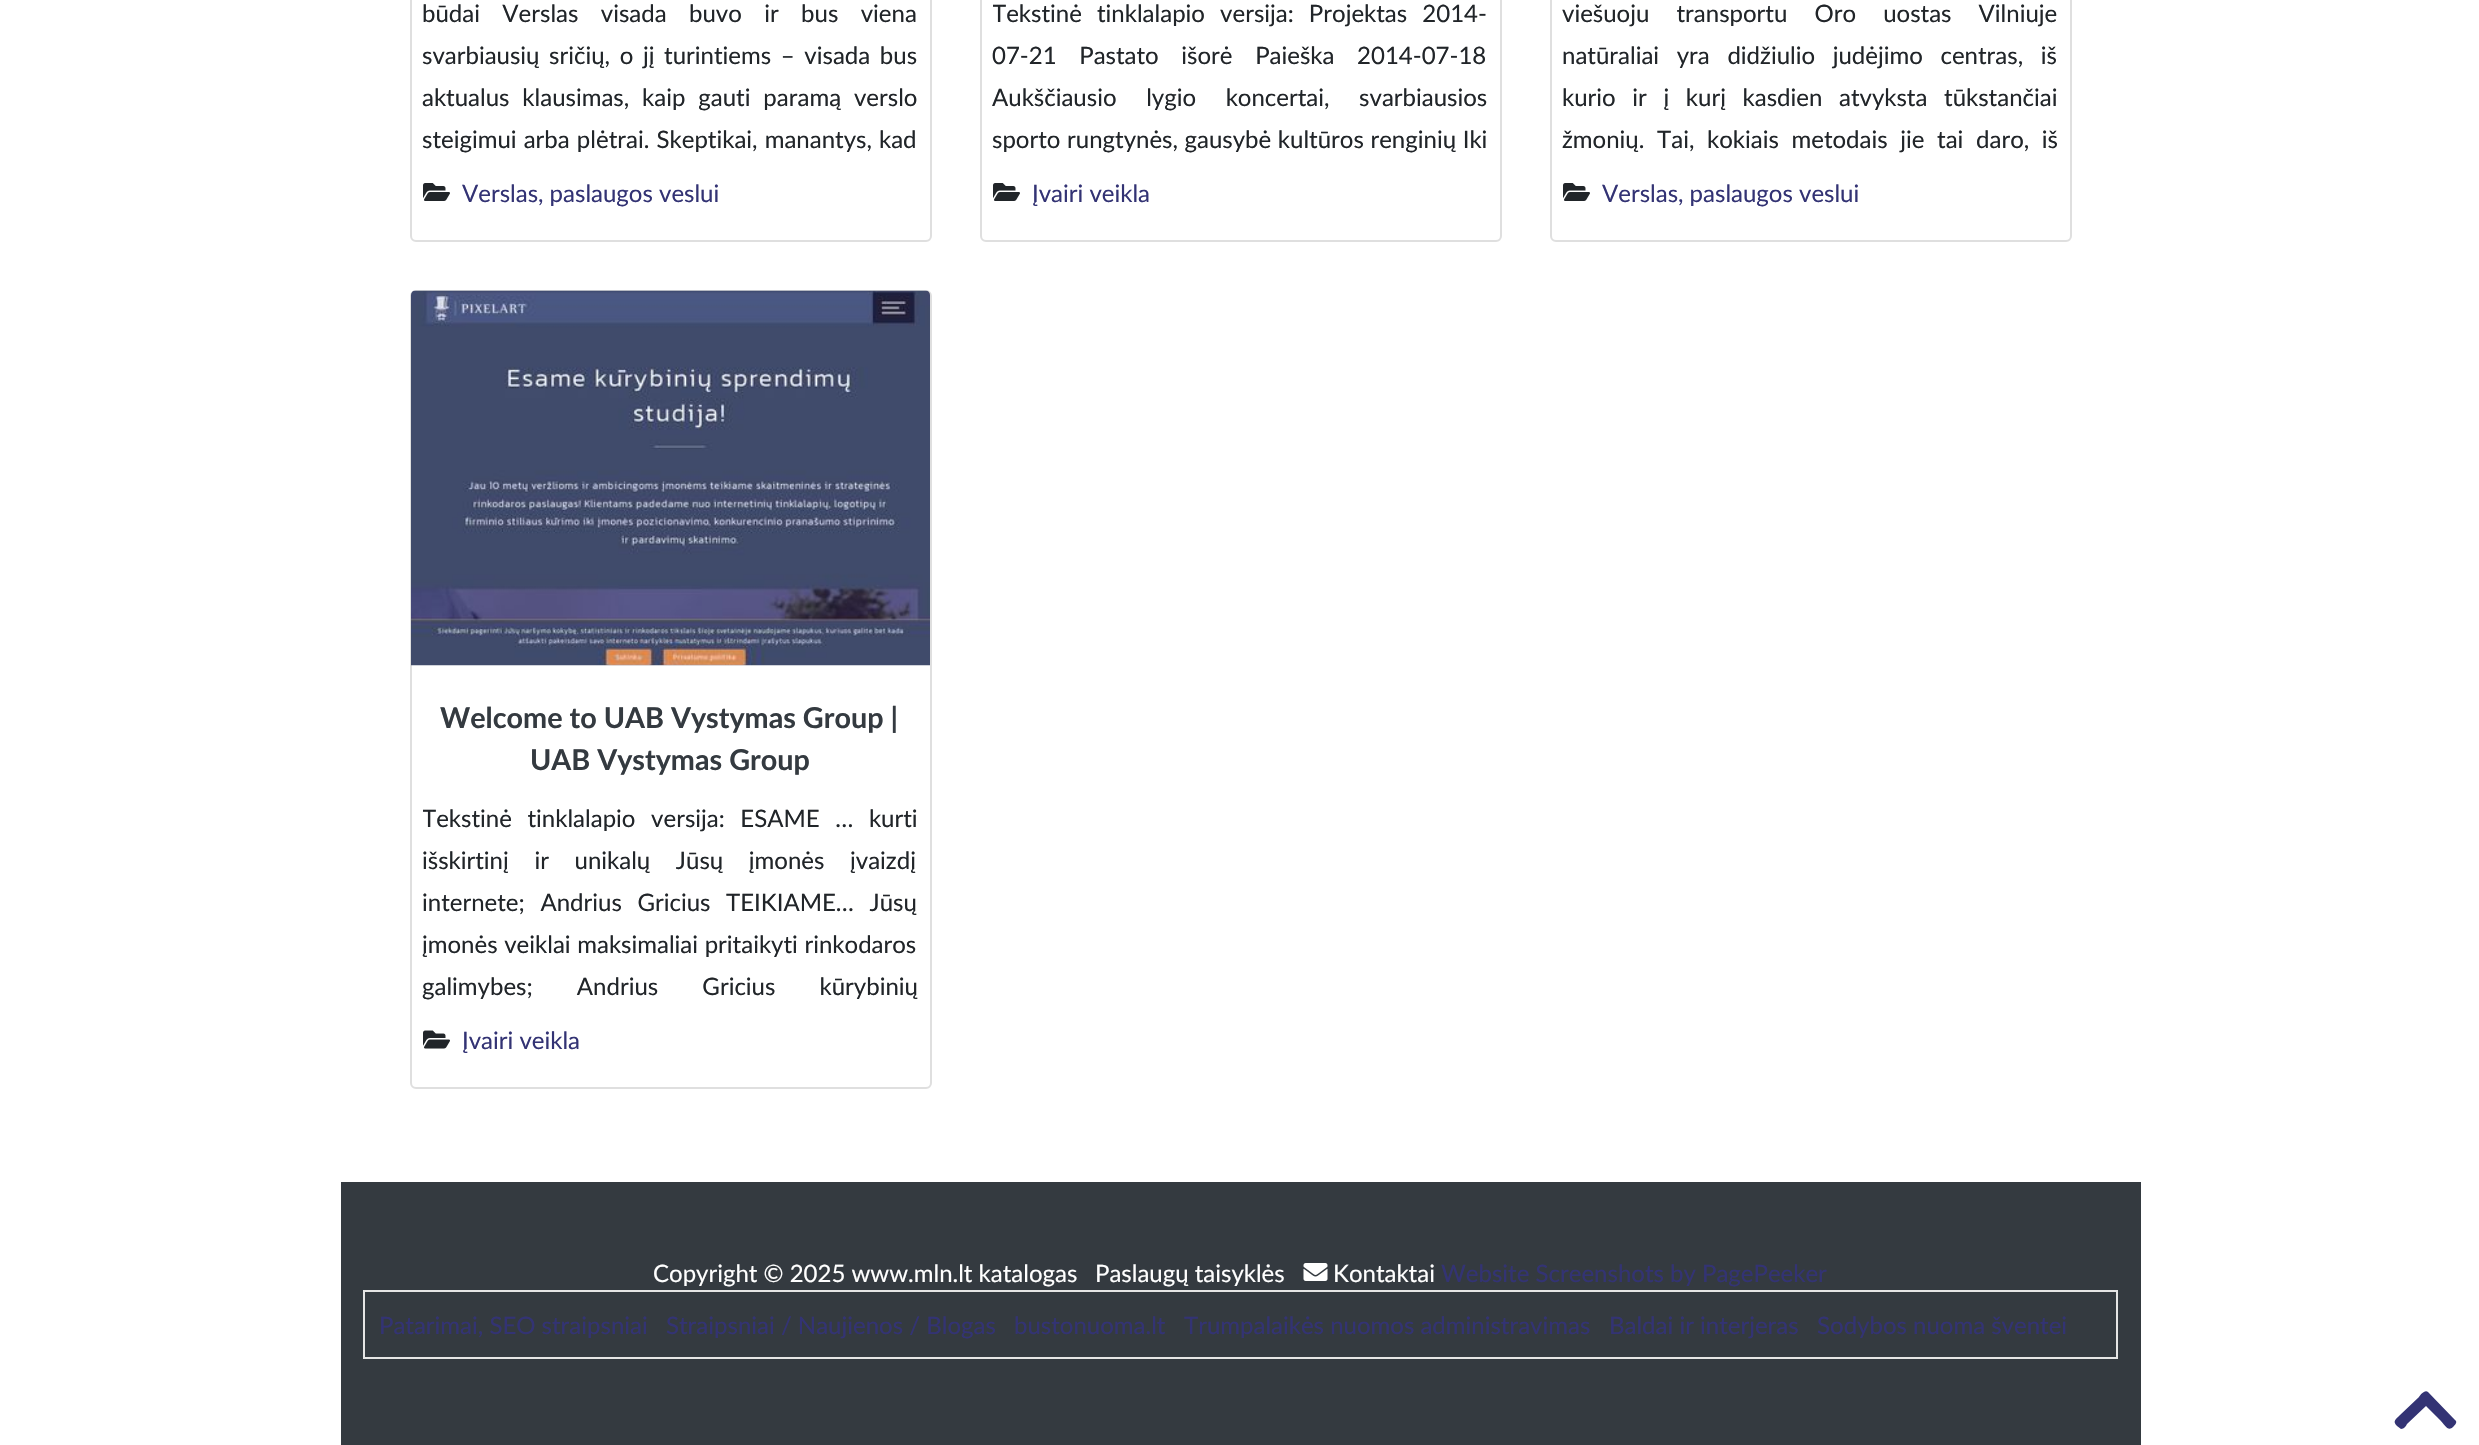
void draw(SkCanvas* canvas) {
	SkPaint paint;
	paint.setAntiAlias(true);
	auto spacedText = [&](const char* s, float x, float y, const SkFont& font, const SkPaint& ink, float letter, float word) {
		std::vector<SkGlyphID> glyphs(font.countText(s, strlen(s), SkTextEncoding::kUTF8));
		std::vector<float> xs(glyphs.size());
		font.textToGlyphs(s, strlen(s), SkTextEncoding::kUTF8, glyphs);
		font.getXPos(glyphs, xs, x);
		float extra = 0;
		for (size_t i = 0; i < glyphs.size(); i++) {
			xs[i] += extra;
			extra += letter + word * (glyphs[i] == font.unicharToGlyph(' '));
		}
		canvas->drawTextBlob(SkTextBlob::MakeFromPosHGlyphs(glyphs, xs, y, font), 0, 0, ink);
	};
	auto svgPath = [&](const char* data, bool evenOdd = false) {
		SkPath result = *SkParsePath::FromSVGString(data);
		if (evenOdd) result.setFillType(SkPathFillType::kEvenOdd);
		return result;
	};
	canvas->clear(0xffffffff);
	paint.setStroke(true);
	paint.setStrokeWidth(2);
	paint.setColor(0xffdfdfdf);
	canvas->drawRoundRect(SkRect::MakeXYWH(411, -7, 520, 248), 5, 5, paint);
	SkFont f1(fontMgr->matchFamilyStyle("Lato", SkFontStyle::Normal()), 24);
	f1.setSubpixel(true);
	paint.setStroke(false);
	paint.setColor(0xff212529);
	spacedText("būdai Verslas visada buvo ir bus viena", 422, 22, f1, paint, 0, 16.25);
	spacedText("svarbiausių sričių, o jį turintiems – visada bus", 422, 64, f1, paint, 0, 3.5);
	spacedText("aktualus klausimas, kaip gauti paramą verslo", 422, 106, f1, paint, 0, 6.75);
	spacedText("steigimui arba plėtrai. Skeptikai, manantys, kad", 422, 148, f1, paint, 0, 1);
	canvas->drawImageRect(SkImages::DeferredFromEncodedData(SkData::MakeFromFileName("img1.png")), SkRect::MakeXYWH(423, 183, 27, 18), SkSamplingOptions());
	paint.setColor(0xff333374);
	canvas->drawString("Verslas, paslaugos veslui", 462, 202, f1, paint);
	paint.setStroke(true);
	paint.setColor(0xffdfdfdf);
	canvas->drawRoundRect(SkRect::MakeXYWH(981, -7, 520, 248), 5, 5, paint);
	canvas->save();
	canvas->clipRect(SkRect::MakeXYWH(993, 0, 495, 159));
	paint.setStroke(false);
	paint.setColor(0xff212529);
	spacedText("Tekstinė tinklalapio versija: Projektas 2014-", 992, 22, f1, paint, 0, 9);
	canvas->restore();
	spacedText("07-21 Pastato išorė Paieška 2014-07-18", 992, 64, f1, paint, 0, 16.5);
	spacedText("Aukščiausio lygio koncertai, svarbiausios", 992, 106, f1, paint, 0, 23.5);
	spacedText("sporto rungtynės, gausybė kultūros renginių Iki", 992, 148, f1, paint, 0, 0.5);
	canvas->drawImageRect(SkImages::DeferredFromEncodedData(SkData::MakeFromFileName("img1.png")), SkRect::MakeXYWH(993, 183, 27, 18), SkSamplingOptions());
	paint.setColor(0xff333374);
	canvas->drawString("Įvairi veikla", 1032, 202, f1, paint);
	paint.setStroke(true);
	paint.setColor(0xffdfdfdf);
	canvas->drawRoundRect(SkRect::MakeXYWH(1551, -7, 520, 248), 5, 5, paint);
	paint.setStroke(false);
	paint.setColor(0xff212529);
	spacedText("viešuoju transportu Oro uostas Vilniuje", 1562, 22, f1, paint, 0, 21);
	spacedText("natūraliai yra didžiulio judėjimo centras, iš", 1562, 64, f1, paint, 0, 11.5);
	spacedText("kurio ir į kurį kasdien atvyksta tūkstančiai", 1562, 106, f1, paint, 0, 10.5);
	spacedText("žmonių. Tai, kokiais metodais jie tai daro, iš", 1562, 148, f1, paint, 0, 6.5);
	canvas->drawImageRect(SkImages::DeferredFromEncodedData(SkData::MakeFromFileName("img1.png")), SkRect::MakeXYWH(1563, 183, 27, 18), SkSamplingOptions());
	paint.setColor(0xff333374);
	canvas->drawString("Verslas, paslaugos veslui", 1602, 202, f1, paint);
	paint.setStroke(true);
	paint.setColor(0xffdfdfdf);
	canvas->drawRoundRect(SkRect::MakeXYWH(411, 291, 520, 797), 5, 5, paint);
	canvas->drawImageRect(SkImages::DeferredFromEncodedData(SkData::MakeFromFileName("img2.png")), SkRect::MakeXYWH(411, 290, 519, 376), SkSamplingOptions());
	SkFont f2(fontMgr->matchFamilyStyle("Lato", SkFontStyle::Bold()), 28.75);
	f2.setSubpixel(true);
	paint.setStroke(false);
	paint.setColor(0xff343a40);
	canvas->drawString("Welcome to UAB Vystymas Group |", 440, 728, f2, paint);
	canvas->drawString("UAB Vystymas Group", 530, 770, f2, paint);
	canvas->save();
	canvas->clipRect(SkRect::MakeXYWH(423, 797, 495, 210));
	paint.setColor(0xff212529);
	spacedText("Tekstinė tinklalapio versija: ESAME … kurti", 422, 827, f1, paint, 0, 9.5);
	canvas->restore();
	spacedText("išskirtinį ir unikalų Jūsų įmonės įvaizdį", 422, 869, f1, paint, 0, 19.5);
	spacedText("internete; Andrius Gricius TEIKIAME… Jūsų", 422, 911, f1, paint, 0, 9.5);
	spacedText("įmonės veiklai maksimaliai pritaikyti rinkodaros", 422, 953, f1, paint, 0, 0.5);
	spacedText("galimybes; Andrius Gricius kūrybinių", 422, 995, f1, paint, 0, 38);
	canvas->drawImageRect(SkImages::DeferredFromEncodedData(SkData::MakeFromFileName("img3.png")), SkRect::MakeXYWH(423, 1030, 27, 19), SkSamplingOptions());
	paint.setColor(0xff333374);
	canvas->drawString("Įvairi veikla", 462, 1049, f1, paint);
	paint.setColor(0xff343a40);
	canvas->drawRect(SkRect::MakeXYWH(341, 1182, 1800, 263), paint);
	paint.setColor(0xffffffff);
	canvas->drawString("Copyright © 2025 www.mln.lt katalogas", 653, 1282, f1, paint);
	canvas->drawString("Paslaugų taisyklės", 1095, 1282, f1, paint);
	canvas->drawImageRect(SkImages::DeferredFromEncodedData(SkData::MakeFromFileName("img4.png")), SkRect::MakeXYWH(1303, 1263, 25, 18), SkSamplingOptions());
	canvas->drawString("Kontaktai", 1333, 1282, f1, paint);
	paint.setColor(0xff333374);
	canvas->drawString("Website Screenshots by PagePeeker", 1441, 1282, f1, paint);
	paint.setStroke(true);
	paint.setColor(0xffe5e5e5);
	canvas->drawRect(SkRect::MakeXYWH(364, 1291, 1753, 67), paint);
	paint.setStroke(false);
	paint.setColor(0xff333374);
	canvas->drawString("Patarimai, SEO straipsniai", 379, 1334, f1, paint);
	canvas->drawString("Straipsniai / Naujienos / Blogas", 666, 1334, f1, paint);
	canvas->drawString("bustonuoma.lt", 1014, 1334, f1, paint);
	canvas->drawString("Trumpalaikės nuomos administravimas", 1184, 1334, f1, paint);
	canvas->drawString("Baldai ir interjeras", 1609, 1334, f1, paint);
	canvas->drawString("Sodybos nuoma šventei", 1817, 1334, f1, paint);
	canvas->drawPath(svgPath("M2428 1392L2455 1420C2458 1422 2455 1425 2453 1427C2448 1432 2445 1425 2440 1420L2426 1406L2407 1424C2406 1426 2404 1429 2401 1429L2397 1426C2392 1421 2396 1419 2400 1415L2419 1397C2420 1395 2425 1389 2428 1392Z"), paint);
}
